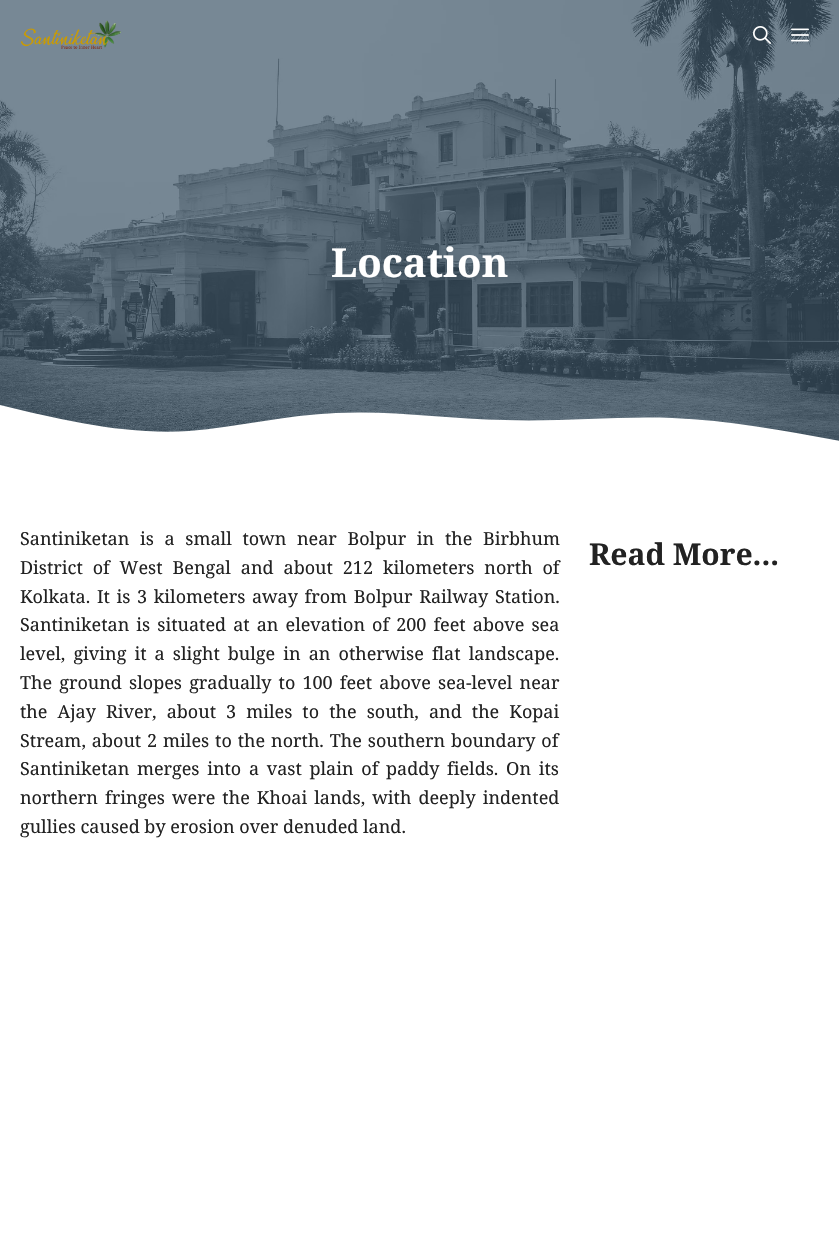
void draw(SkCanvas* canvas) {
	SkPaint paint;
	paint.setAntiAlias(true);
	auto spacedText = [&](const char* s, float x, float y, const SkFont& font, const SkPaint& ink, float letter, float word) {
		std::vector<SkGlyphID> glyphs(font.countText(s, strlen(s), SkTextEncoding::kUTF8));
		std::vector<float> xs(glyphs.size());
		font.textToGlyphs(s, strlen(s), SkTextEncoding::kUTF8, glyphs);
		font.getXPos(glyphs, xs, x);
		float extra = 0;
		for (size_t i = 0; i < glyphs.size(); i++) {
			xs[i] += extra;
			extra += letter + word * (glyphs[i] == font.unicharToGlyph(' '));
		}
		canvas->drawTextBlob(SkTextBlob::MakeFromPosHGlyphs(glyphs, xs, y, font), 0, 0, ink);
	};
	auto svgPath = [&](const char* data, bool evenOdd = false) {
		SkPath result = *SkParsePath::FromSVGString(data);
		if (evenOdd) result.setFillType(SkPathFillType::kEvenOdd);
		return result;
	};
	canvas->clear(0xffffffff);
	paint.setColor(0xff3c5467);
	canvas->drawRect(SkRect::MakeXYWH(0, 0, 839, 441), paint);
	canvas->drawImageRect(SkImages::DeferredFromEncodedData(SkData::MakeFromFileName("img4.png")), SkRect::MakeXYWH(0, 0, 839, 441), SkSamplingOptions());
	canvas->drawImageRect(SkImages::DeferredFromEncodedData(SkData::MakeFromFileName("img1.png")), SkRect::MakeXYWH(20, 20, 101, 29), SkSamplingOptions());
	canvas->drawImageRect(SkImages::DeferredFromEncodedData(SkData::MakeFromFileName("img2.png")), SkRect::MakeXYWH(753, 26, 18, 18), SkSamplingOptions());
	canvas->drawImageRect(SkImages::DeferredFromEncodedData(SkData::MakeFromFileName("img3.png")), SkRect::MakeXYWH(791, 28, 18, 14), SkSamplingOptions());
	SkFont f1(fontMgr->matchFamilyStyle("Noto Serif", SkFontStyle::Bold()), 40);
	f1.setSubpixel(true);
	paint.setColor(0xffffffff);
	canvas->drawString("Location", 331, 277, f1, paint);
	canvas->save();
	canvas->clipRect(SkRect::MakeXYWH(0, 405, 839, 39));
	canvas->drawPath(svgPath("M0 405C62 420 124 435 189 431C238 427 287 415 336 413C392 410 448 419 504 420C560 422 616 416 672 418C729 420 785 431 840 441V445H0Z"), paint);
	canvas->restore();
	SkFont f2(fontMgr->matchFamilyStyle("Noto Serif", SkFontStyle::Normal()), 18);
	f2.setSubpixel(true);
	paint.setColor(0xff222222);
	spacedText("Santiniketan is a small town near Bolpur in the Birbhum", 20, 545, f2, paint, 0, 6);
	spacedText("District of West Bengal and about 212 kilometers north of", 20, 574, f2, paint, 0, 5.25);
	spacedText("Kolkata. It is 3 kilometers away from Bolpur Railway Station.", 20, 603, f2, paint, 0, 2);
	spacedText("Santiniketan is situated at an elevation of 200 feet above sea", 20, 631, f2, paint, 0, 2.4);
	spacedText("level, giving it a slight bulge in an otherwise flat landscape.", 20, 660, f2, paint, 0, 3.4);
	spacedText("The ground slopes gradually to 100 feet above sea-level near", 20, 689, f2, paint, 0, 2.5);
	spacedText("the Ajay River, about 3 miles to the south, and the Kopai", 20, 718, f2, paint, 0, 5.4);
	spacedText("Stream, about 2 miles to the north. The southern boundary of", 20, 747, f2, paint, 0, 1.25);
	spacedText("Santiniketan merges into a vast plain of paddy fields. On its", 20, 775, f2, paint, 0, 3);
	spacedText("northern fringes were the Khoai lands, with deeply indented", 20, 804, f2, paint, 0, 2.4);
	canvas->drawString("gullies caused by erosion over denuded land.", 20, 833, f2, paint);
	SkFont f3(fontMgr->matchFamilyStyle("Noto Serif", SkFontStyle::Bold()), 30);
	f3.setSubpixel(true);
	canvas->drawString("Read More...", 589, 565, f3, paint);
}
